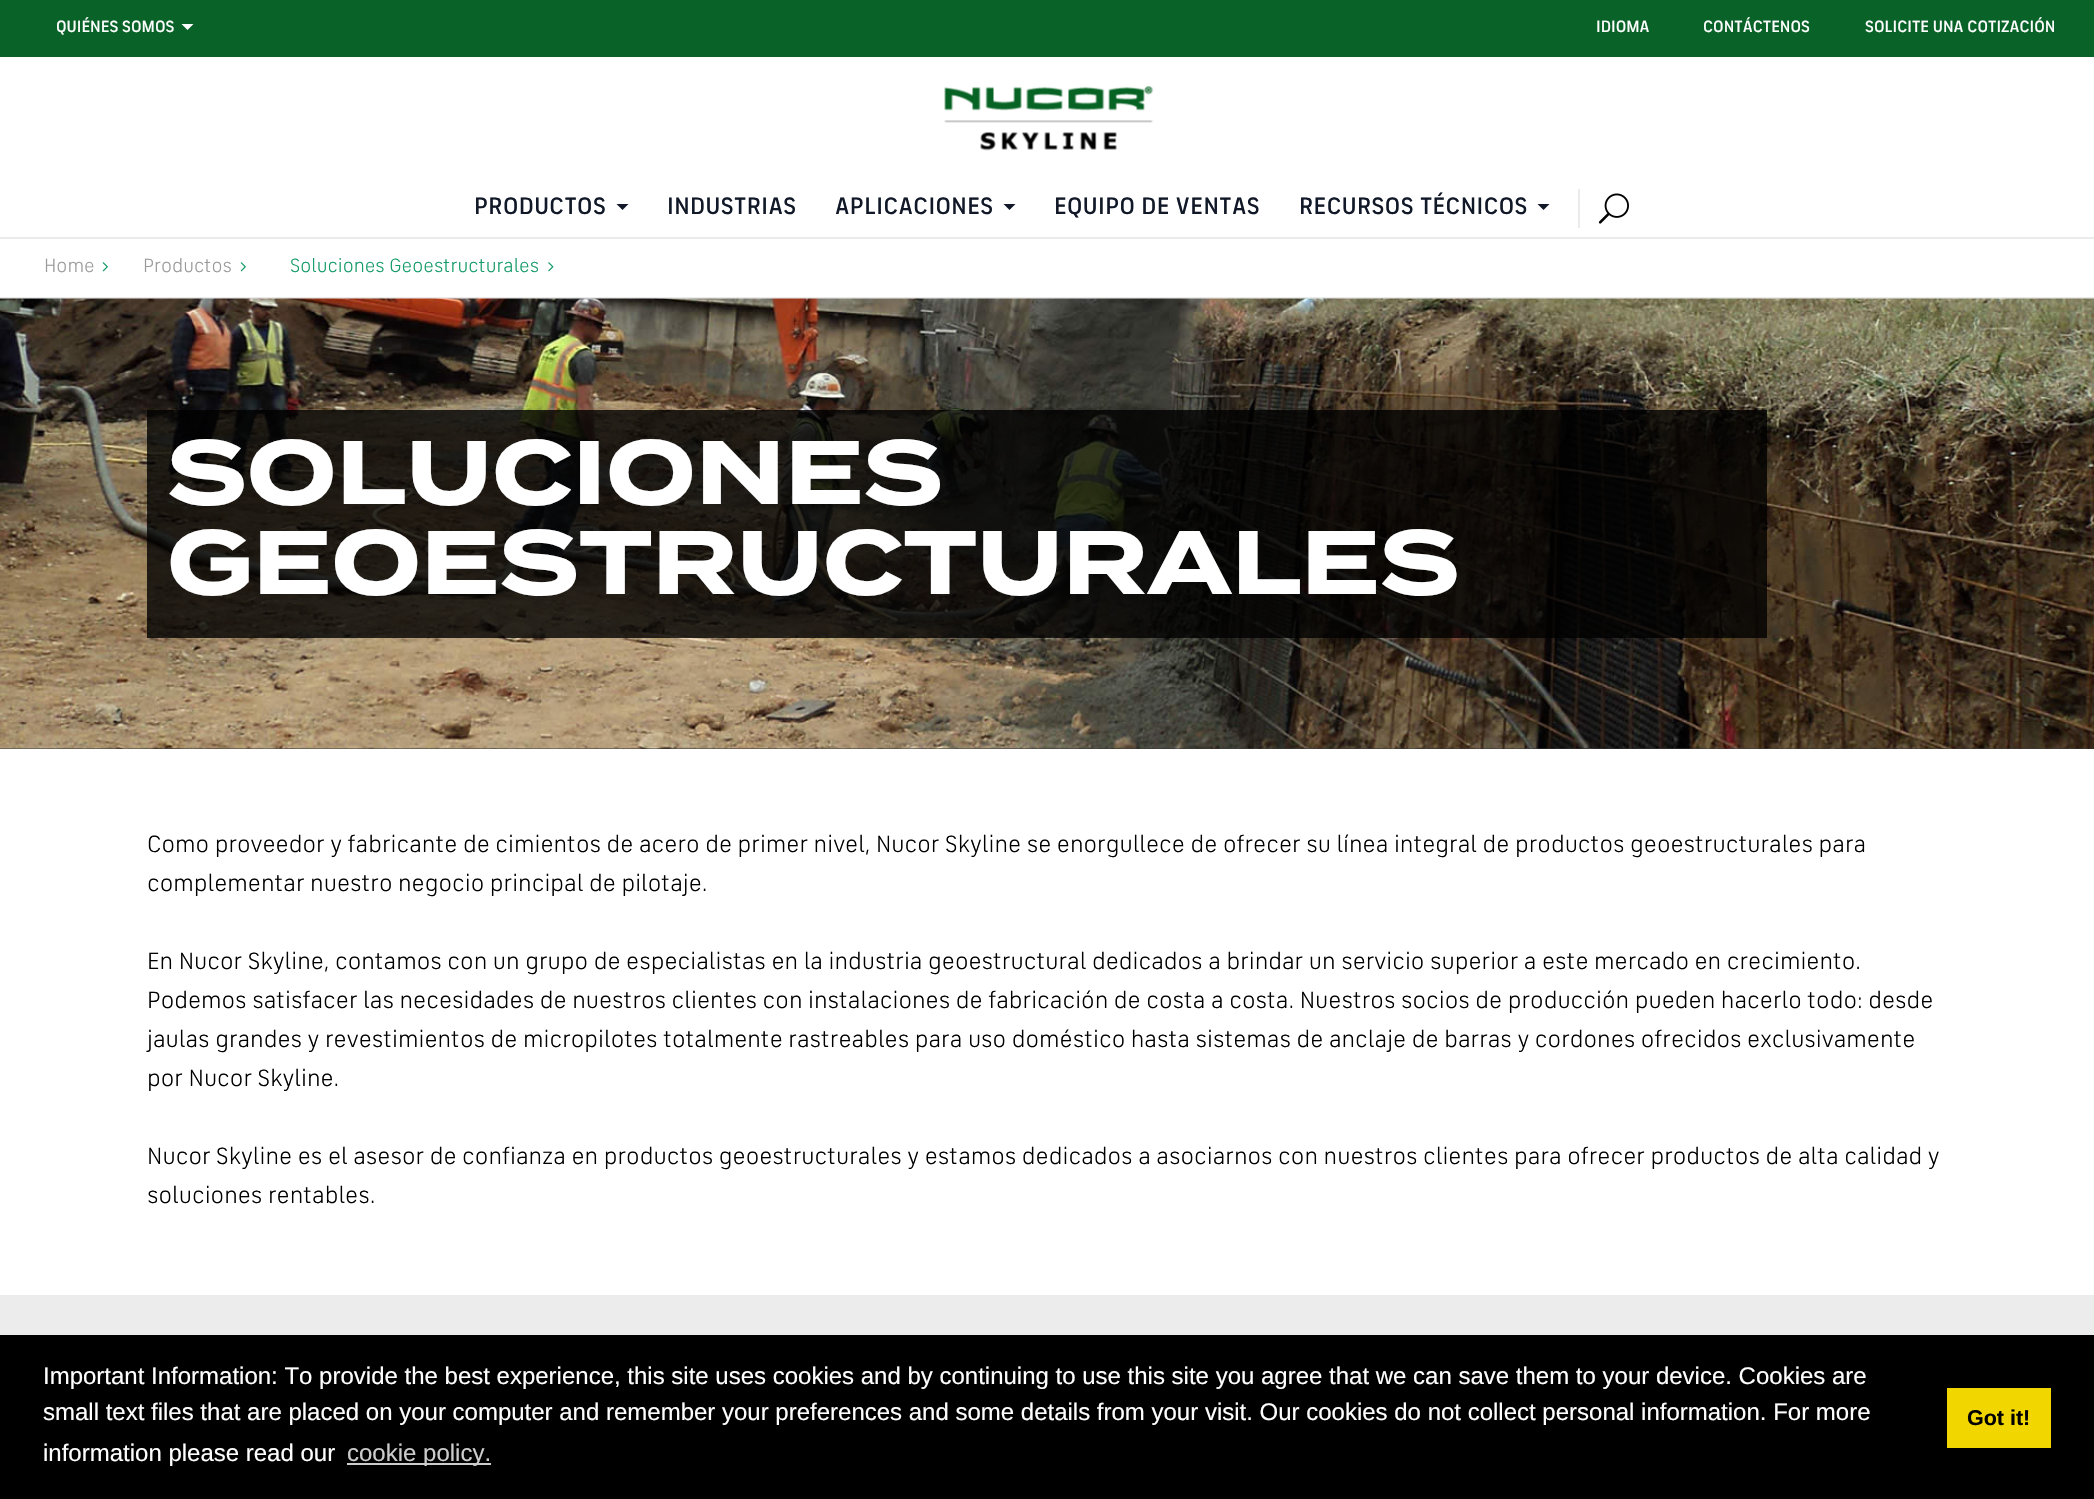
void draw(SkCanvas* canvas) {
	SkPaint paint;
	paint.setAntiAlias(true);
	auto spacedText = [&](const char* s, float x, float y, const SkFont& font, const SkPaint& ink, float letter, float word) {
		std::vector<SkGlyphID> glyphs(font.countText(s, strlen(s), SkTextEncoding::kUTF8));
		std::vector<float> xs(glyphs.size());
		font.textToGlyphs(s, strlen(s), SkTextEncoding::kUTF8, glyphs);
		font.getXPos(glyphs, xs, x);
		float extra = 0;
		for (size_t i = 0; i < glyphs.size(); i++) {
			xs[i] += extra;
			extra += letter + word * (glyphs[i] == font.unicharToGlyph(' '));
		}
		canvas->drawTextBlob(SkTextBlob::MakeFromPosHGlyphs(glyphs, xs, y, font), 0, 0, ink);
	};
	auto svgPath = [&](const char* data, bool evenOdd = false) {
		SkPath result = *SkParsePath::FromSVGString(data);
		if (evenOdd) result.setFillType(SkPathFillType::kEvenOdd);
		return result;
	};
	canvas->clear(0xffffffff);
	paint.setColor(0xff096228);
	canvas->drawRect(SkRect::MakeXYWH(0, 0, 2094, 57), paint);
	SkFont f1(fontMgr->matchFamilyStyle("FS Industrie", SkFontStyle(500, SkFontStyle::kNormal_Width, SkFontStyle::kUpright_Slant)), 16.5);
	f1.setSubpixel(true);
	paint.setColor(0xffffffff);
	canvas->drawString("QUIÉNES SOMOS", 56, 32, f1, paint);
	canvas->drawPath(svgPath("M181.5 24H193.5L187.5 30Z"), paint);
	canvas->drawString("IDIOMA", 1596, 32, f1, paint);
	canvas->drawString("CONTÁCTENOS", 1703, 32, f1, paint);
	canvas->drawString("SOLICITE UNA COTIZACIÓN", 1865, 32, f1, paint);
	paint.setColor(0xffebebeb);
	canvas->drawRect(SkRect::MakeXYWH(0, 237, 2094, 2), paint);
	canvas->drawImageRect(SkImages::DeferredFromEncodedData(SkData::MakeFromFileName("img1.png")), SkRect::MakeXYWH(944, 86, 210, 65), SkSamplingOptions());
	SkFont f2(fontMgr->matchFamilyStyle("FS Industrie", SkFontStyle(500, SkFontStyle::kNormal_Width, SkFontStyle::kUpright_Slant)), 24);
	f2.setSubpixel(true);
	paint.setColor(0xff111827);
	spacedText("PRODUCTOS", 474, 214, f2, paint, 0.4, 0);
	canvas->drawPath(svgPath("M616.5 204H628.5L622.5 210Z"), paint);
	spacedText("INDUSTRIAS", 667, 214, f2, paint, 0.4, 0);
	spacedText("APLICACIONES", 835, 214, f2, paint, 0.4, 0);
	canvas->drawPath(svgPath("M1003.5 204H1015.5L1009.5 210Z"), paint);
	spacedText("EQUIPO DE VENTAS", 1054, 214, f2, paint, 0.4, 0);
	spacedText("RECURSOS TÉCNICOS", 1299, 214, f2, paint, 0.4, 0);
	canvas->drawPath(svgPath("M1537.5 204H1549.5L1543.5 210Z"), paint);
	paint.setColor(0xffebebeb);
	canvas->drawRect(SkRect::MakeXYWH(1578, 189, 2, 39), paint);
	canvas->drawImageRect(SkImages::DeferredFromEncodedData(SkData::MakeFromFileName("img2.png")), SkRect::MakeXYWH(1598, 193, 31, 31), SkSamplingOptions());
	canvas->drawRect(SkRect::MakeXYWH(0, 297, 2094, 2), paint);
	SkFont f3(fontMgr->matchFamilyStyle("FS Industrie", SkFontStyle::Normal()), 19.5);
	f3.setSubpixel(true);
	paint.setColor(0xff999999);
	canvas->drawString("Home", 44, 272, f3, paint);
	canvas->drawImageRect(SkImages::DeferredFromEncodedData(SkData::MakeFromFileName("img3.png")), SkRect::MakeXYWH(102, 262, 6, 10), SkSamplingOptions());
	canvas->drawString("Productos", 143, 272, f3, paint);
	canvas->drawImageRect(SkImages::DeferredFromEncodedData(SkData::MakeFromFileName("img3.png")), SkRect::MakeXYWH(240, 262, 6, 10), SkSamplingOptions());
	paint.setColor(0xff139a68);
	canvas->drawString("Soluciones Geoestructurales", 290, 272, f3, paint);
	canvas->drawImageRect(SkImages::DeferredFromEncodedData(SkData::MakeFromFileName("img4.png")), SkRect::MakeXYWH(548, 262, 6, 10), SkSamplingOptions());
	paint.setColor(0xff353535);
	canvas->drawRect(SkRect::MakeXYWH(0, 748, 2094, 1), paint);
	canvas->drawImageRect(SkImages::DeferredFromEncodedData(SkData::MakeFromFileName("img5.png")), SkRect::MakeXYWH(0, 298, 2094, 451), SkSamplingOptions());
	paint.setColor(0xcc000000);
	canvas->drawRect(SkRect::MakeXYWH(147, 410, 1620, 228), paint);
	SkFont f4(fontMgr->matchFamilyStyle("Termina", SkFontStyle::Bold()), 90);
	f4.setSubpixel(true);
	paint.setColor(0xffffffff);
	canvas->drawString("SOLUCIONES", 167, 504, f4, paint);
	canvas->drawString("GEOESTRUCTURALES", 167, 594, f4, paint);
	SkFont f5(fontMgr->matchFamilyStyle("FS Industrie", SkFontStyle::Normal()), 24);
	f5.setSubpixel(true);
	paint.setColor(0xff000000);
	canvas->drawString("Como proveedor y fabricante de cimientos de acero de primer nivel, Nucor Skyline se enorgullece de ofrecer su línea integral de productos geoestructurales para", 147, 852, f5, paint);
	canvas->drawString("complementar nuestro negocio principal de pilotaje.", 147, 891, f5, paint);
	canvas->drawString("En Nucor Skyline, contamos con un grupo de especialistas en la industria geoestructural dedicados a brindar un servicio superior a este mercado en crecimiento.", 147, 969, f5, paint);
	canvas->drawString("Podemos satisfacer las necesidades de nuestros clientes con instalaciones de fabricación de costa a costa. Nuestros socios de producción pueden hacerlo todo: desde", 147, 1008, f5, paint);
	canvas->drawString("jaulas grandes y revestimientos de micropilotes totalmente rastreables para uso doméstico hasta sistemas de anclaje de barras y cordones ofrecidos exclusivamente", 147, 1047, f5, paint);
	canvas->drawString("por Nucor Skyline.", 147, 1086, f5, paint);
	canvas->drawString("Nucor Skyline es el asesor de confianza en productos geoestructurales y estamos dedicados a asociarnos con nuestros clientes para ofrecer productos de alta calidad y", 147, 1164, f5, paint);
	canvas->drawString("soluciones rentables.", 147, 1203, f5, paint);
	paint.setColor(0xffececec);
	canvas->drawRect(SkRect::MakeXYWH(0, 1295, 2094, 40), paint);
	paint.setColor(0xff000000);
	canvas->drawRect(SkRect::MakeXYWH(0, 1335, 2094, 164), paint);
	SkFont f6(fontMgr->matchFamilyStyle("Liberation Sans", SkFontStyle::Normal()), 24);
	f6.setSubpixel(true);
	paint.setColor(0xffffffff);
	canvas->drawString("Important Information: To provide the best experience, this site uses cookies and by continuing to use this site you agree that we can save them to your device. Cookies are", 43, 1384, f6, paint);
	canvas->drawString("small text files that are placed on your computer and remember your preferences and some details from your visit. Our cookies do not collect personal information. For more", 43, 1420, f6, paint);
	canvas->drawString("information please read our", 43, 1461, f6, paint);
	paint.setColor(0xffcccccc);
	canvas->drawRect(SkRect::MakeXYWH(347, 1463, 144, 2), paint);
	canvas->drawString("cookie policy.", 347, 1461, f6, paint);
	paint.setColor(0xfff1d600);
	canvas->drawRect(SkRect::MakeXYWH(1947, 1388, 104, 60), paint);
	SkFont f7(fontMgr->matchFamilyStyle("Liberation Sans", SkFontStyle::Bold()), 21.5);
	f7.setSubpixel(true);
	paint.setColor(0xff000000);
	canvas->drawString("Got it!", 1967, 1425, f7, paint);
}
